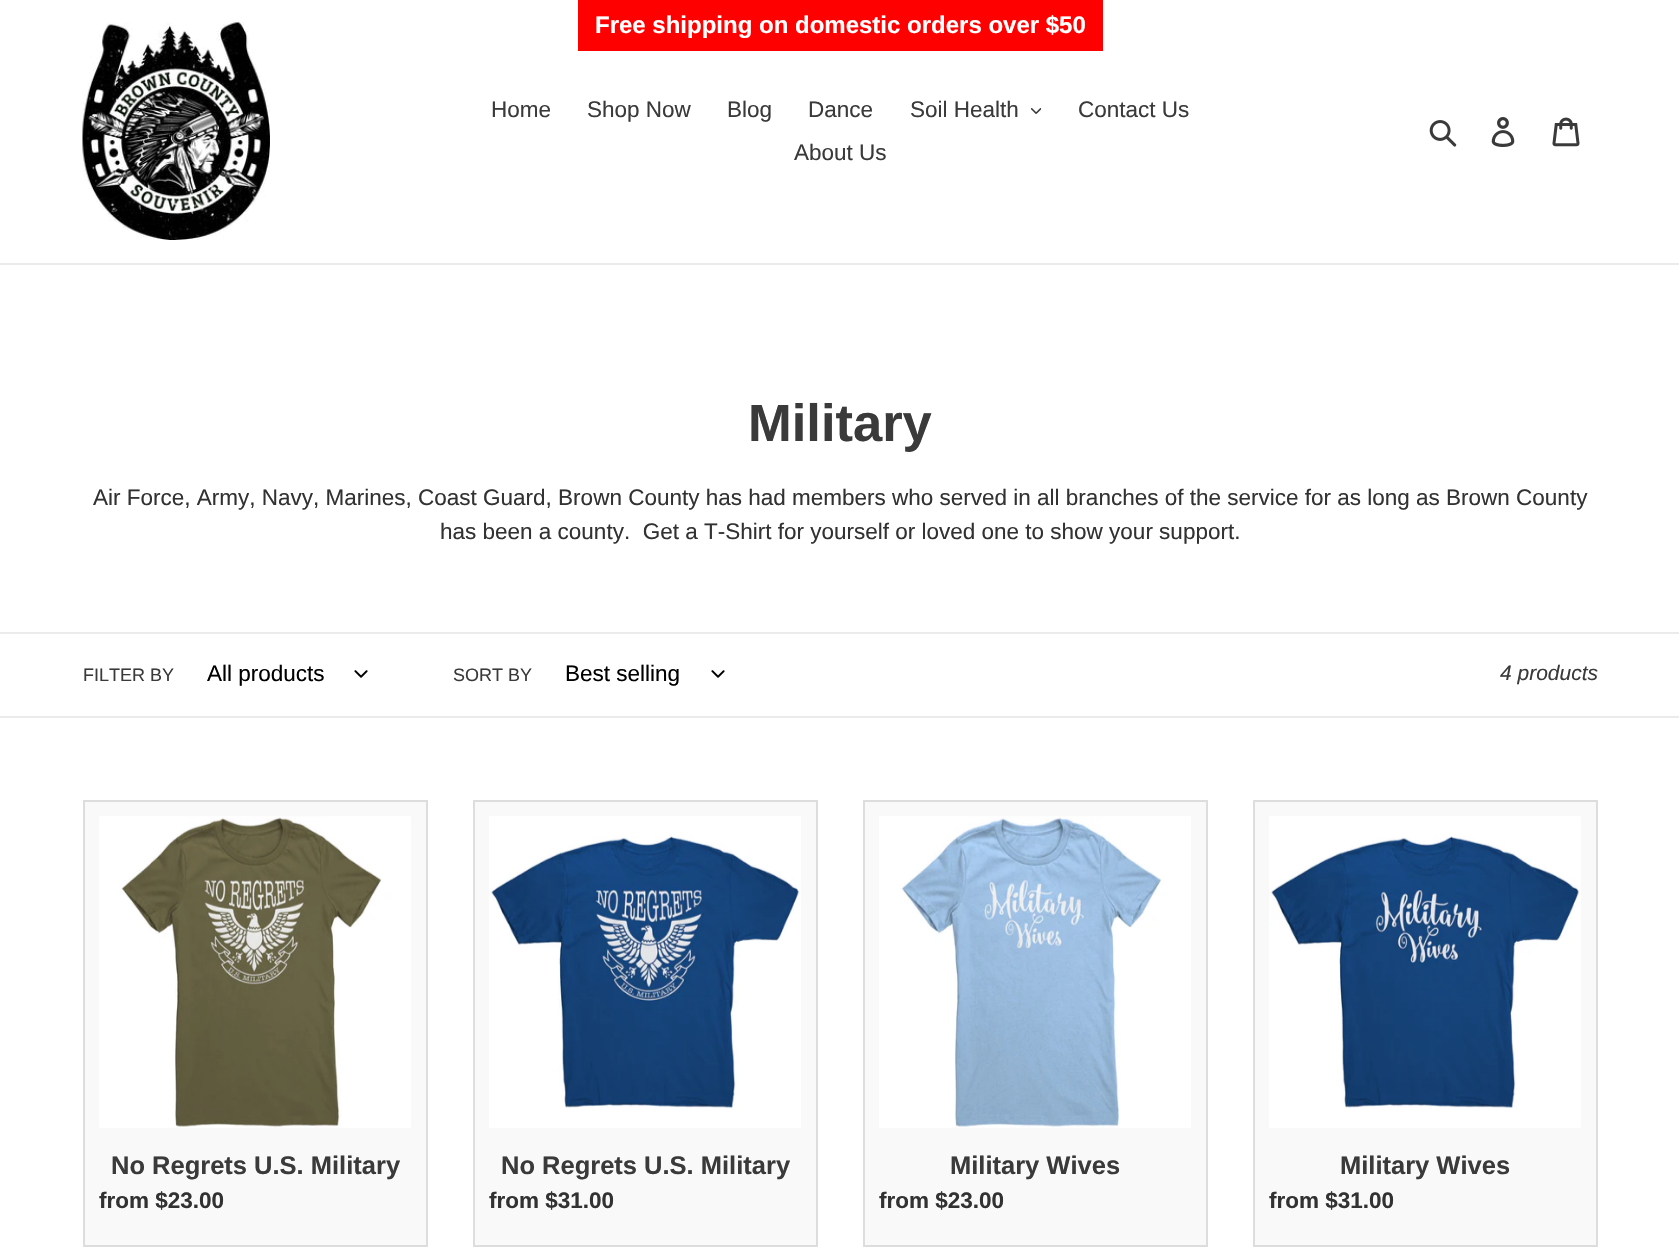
void draw(SkCanvas* canvas) {
	SkPaint paint;
	paint.setAntiAlias(true);
	canvas->clear(0xffffffff);
	paint.setColor(0xffff0000);
	canvas->drawRect(SkRect::MakeXYWH(578, 0, 525, 51), paint);
	SkFont f1(fontMgr->matchFamilyStyle("Liberation Sans", SkFontStyle::Bold()), 24);
	f1.setSubpixel(true);
	paint.setColor(0xffffffff);
	canvas->drawString("Free shipping on domestic orders over $50", 595, 33, f1, paint);
	paint.setColor(0xffebebeb);
	canvas->drawRect(SkRect::MakeXYWH(0, 263, 1679, 2), paint);
	canvas->drawImageRect(SkImages::DeferredFromEncodedData(SkData::MakeFromFileName("img1.png")), SkRect::MakeXYWH(82, 22, 188, 218), SkSamplingOptions());
	SkFont f2(fontMgr->matchFamilyStyle("Liberation Sans", SkFontStyle::Normal()), 22.5);
	f2.setSubpixel(true);
	paint.setColor(0xff3a3a3a);
	canvas->drawString("Home", 491, 117, f2, paint);
	canvas->drawString("Shop Now", 587, 117, f2, paint);
	canvas->drawString("Blog", 727, 117, f2, paint);
	canvas->drawString("Dance", 808, 117, f2, paint);
	canvas->drawString("Soil Health", 910, 117, f2, paint);
	canvas->drawImageRect(SkImages::DeferredFromEncodedData(SkData::MakeFromFileName("img2.png")), SkRect::MakeXYWH(1031, 108, 10, 6), SkSamplingOptions());
	canvas->drawString("Contact Us", 1078, 117, f2, paint);
	canvas->drawString("About Us", 794, 160, f2, paint);
	canvas->drawImageRect(SkImages::DeferredFromEncodedData(SkData::MakeFromFileName("img3.png")), SkRect::MakeXYWH(1429, 120, 28, 27), SkSamplingOptions());
	canvas->drawImageRect(SkImages::DeferredFromEncodedData(SkData::MakeFromFileName("img4.png")), SkRect::MakeXYWH(1491, 117, 24, 30), SkSamplingOptions());
	canvas->drawImageRect(SkImages::DeferredFromEncodedData(SkData::MakeFromFileName("img5.png")), SkRect::MakeXYWH(1552, 117, 28, 30), SkSamplingOptions());
	SkFont f3(fontMgr->matchFamilyStyle("Liberation Sans", SkFontStyle::Bold()), 52.5);
	f3.setSubpixel(true);
	canvas->drawString("Military", 748, 441, f3, paint);
	paint.setColor(0xff333232);
	canvas->drawString("Air Force, Army, Navy, Marines, Coast Guard, Brown County has had members who served in all branches of the service for as long as Brown County", 93, 505, f2, paint);
	canvas->drawString("has been a county.  Get a T-Shirt for yourself or loved one to show your support.", 440, 539, f2, paint);
	paint.setColor(0xffebebeb);
	canvas->drawRect(SkRect::MakeXYWH(0, 632, 1679, 2), paint);
	canvas->drawRect(SkRect::MakeXYWH(0, 716, 1679, 2), paint);
	SkFont f4(fontMgr->matchFamilyStyle("Liberation Sans", SkFontStyle::Normal()), 18);
	f4.setSubpixel(true);
	paint.setColor(0xff3a3a3a);
	canvas->drawString("FILTER BY", 83, 681, f4, paint);
	paint.setColor(0xff000000);
	canvas->drawString("All products", 207, 681, f2, paint);
	canvas->drawImageRect(SkImages::DeferredFromEncodedData(SkData::MakeFromFileName("img6.png")), SkRect::MakeXYWH(354, 670, 14, 8), SkSamplingOptions());
	paint.setColor(0xff3a3a3a);
	canvas->drawString("SORT BY", 453, 681, f4, paint);
	paint.setColor(0xff000000);
	canvas->drawString("Best selling", 565, 681, f2, paint);
	canvas->drawImageRect(SkImages::DeferredFromEncodedData(SkData::MakeFromFileName("img6.png")), SkRect::MakeXYWH(711, 670, 14, 8), SkSamplingOptions());
	SkFont f5(fontMgr->matchFamilyStyle("Liberation Sans", SkFontStyle::Italic()), 21);
	f5.setSubpixel(true);
	paint.setColor(0xff3a3a3a);
	canvas->drawString("4 products", 1500, 680, f5, paint);
	paint.setColor(0xfff9f9f9);
	canvas->drawRect(SkRect::MakeXYWH(84, 801, 343, 445), paint);
	paint.setStroke(true);
	paint.setStrokeWidth(2);
	paint.setColor(0xffdddddd);
	canvas->drawRect(SkRect::MakeXYWH(84, 801, 343, 445), paint);
	canvas->drawImageRect(SkImages::DeferredFromEncodedData(SkData::MakeFromFileName("img7.png")), SkRect::MakeXYWH(99, 816, 312, 312), SkSamplingOptions());
	SkFont f6(fontMgr->matchFamilyStyle("Liberation Sans", SkFontStyle::Bold()), 25.5);
	f6.setSubpixel(true);
	paint.setStroke(false);
	paint.setColor(0xff3a3a3a);
	canvas->drawString("No Regrets U.S. Military", 111, 1174, f6, paint);
	SkFont f7(fontMgr->matchFamilyStyle("Liberation Sans", SkFontStyle::Bold()), 22.5);
	f7.setSubpixel(true);
	paint.setColor(0xff333232);
	canvas->drawString("from $23.00", 99, 1208, f7, paint);
	paint.setColor(0xfff9f9f9);
	canvas->drawRect(SkRect::MakeXYWH(474, 801, 343, 445), paint);
	paint.setStroke(true);
	paint.setColor(0xffdddddd);
	canvas->drawRect(SkRect::MakeXYWH(474, 801, 343, 445), paint);
	canvas->drawImageRect(SkImages::DeferredFromEncodedData(SkData::MakeFromFileName("img8.png")), SkRect::MakeXYWH(489, 816, 312, 312), SkSamplingOptions());
	paint.setStroke(false);
	paint.setColor(0xff3a3a3a);
	canvas->drawString("No Regrets U.S. Military", 501, 1174, f6, paint);
	paint.setColor(0xff333232);
	canvas->drawString("from $31.00", 489, 1208, f7, paint);
	paint.setColor(0xfff9f9f9);
	canvas->drawRect(SkRect::MakeXYWH(864, 801, 343, 445), paint);
	paint.setStroke(true);
	paint.setColor(0xffdddddd);
	canvas->drawRect(SkRect::MakeXYWH(864, 801, 343, 445), paint);
	canvas->drawImageRect(SkImages::DeferredFromEncodedData(SkData::MakeFromFileName("img9.png")), SkRect::MakeXYWH(879, 816, 312, 312), SkSamplingOptions());
	paint.setStroke(false);
	paint.setColor(0xff3a3a3a);
	canvas->drawString("Military Wives", 950, 1174, f6, paint);
	paint.setColor(0xff333232);
	canvas->drawString("from $23.00", 879, 1208, f7, paint);
	paint.setColor(0xfff9f9f9);
	canvas->drawRect(SkRect::MakeXYWH(1254, 801, 343, 445), paint);
	paint.setStroke(true);
	paint.setColor(0xffdddddd);
	canvas->drawRect(SkRect::MakeXYWH(1254, 801, 343, 445), paint);
	canvas->drawImageRect(SkImages::DeferredFromEncodedData(SkData::MakeFromFileName("img10.png")), SkRect::MakeXYWH(1269, 816, 312, 312), SkSamplingOptions());
	paint.setStroke(false);
	paint.setColor(0xff3a3a3a);
	canvas->drawString("Military Wives", 1340, 1174, f6, paint);
	paint.setColor(0xff333232);
	canvas->drawString("from $31.00", 1269, 1208, f7, paint);
}
